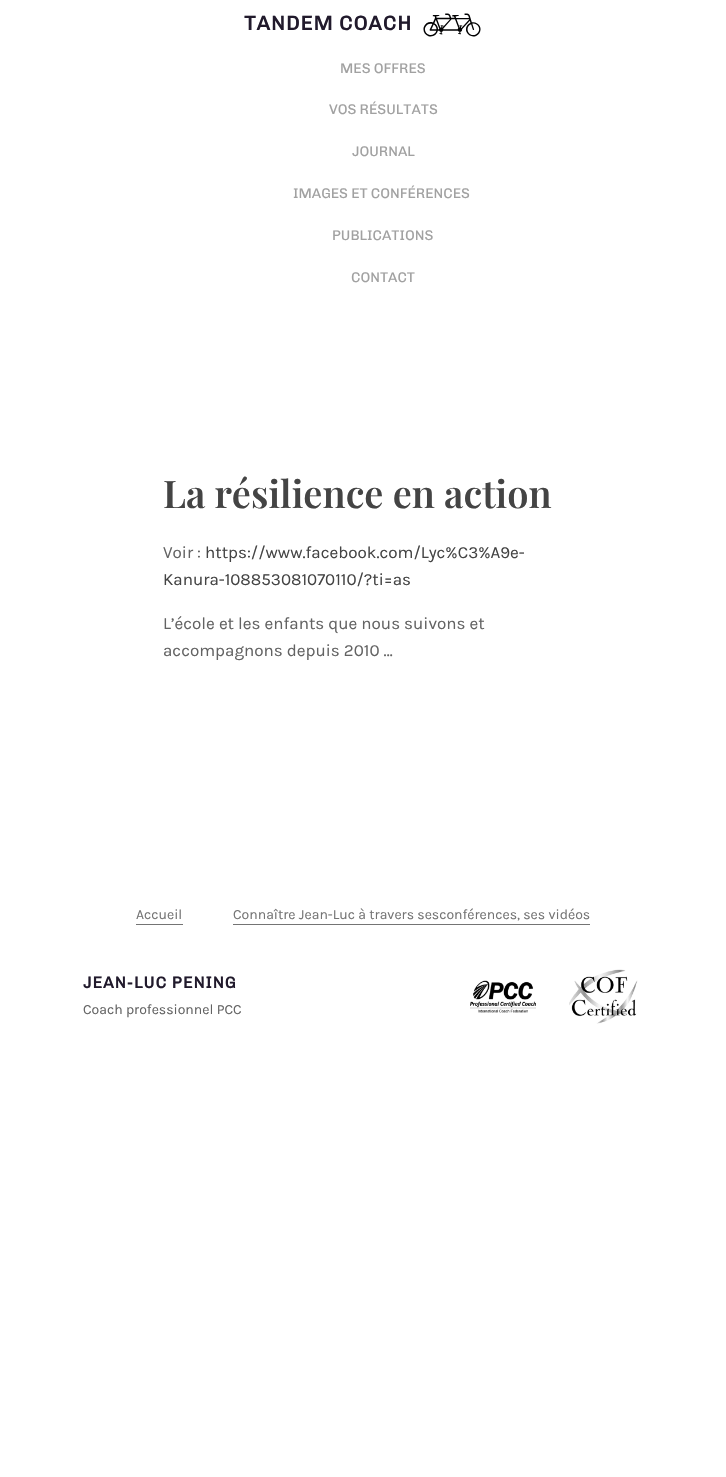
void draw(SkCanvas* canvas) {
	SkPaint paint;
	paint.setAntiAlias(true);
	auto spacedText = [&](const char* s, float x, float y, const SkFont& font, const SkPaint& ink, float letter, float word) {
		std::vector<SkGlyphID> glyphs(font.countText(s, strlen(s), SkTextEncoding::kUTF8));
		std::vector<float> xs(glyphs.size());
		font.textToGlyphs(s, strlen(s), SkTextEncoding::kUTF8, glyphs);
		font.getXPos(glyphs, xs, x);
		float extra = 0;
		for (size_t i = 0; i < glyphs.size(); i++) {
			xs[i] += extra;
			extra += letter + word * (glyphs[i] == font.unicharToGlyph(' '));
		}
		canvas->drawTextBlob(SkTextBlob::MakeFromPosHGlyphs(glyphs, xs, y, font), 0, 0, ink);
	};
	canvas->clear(0xffffffff);
	SkFont f1(fontMgr->matchFamilyStyle("Chivo", SkFontStyle::Bold()), 20);
	f1.setSubpixel(true);
	paint.setColor(0xff211a2c);
	spacedText("TANDEM COACH", 244, 30, f1, paint, 1, 0);
	canvas->drawImageRect(SkImages::DeferredFromEncodedData(SkData::MakeFromFileName("img1.png")), SkRect::MakeXYWH(423, 13, 58, 24), SkSamplingOptions());
	SkFont f2(fontMgr->matchFamilyStyle("Chivo", SkFontStyle(500, SkFontStyle::kNormal_Width, SkFontStyle::kUpright_Slant)), 14);
	f2.setSubpixel(true);
	paint.setColor(0xffa1a1a1);
	canvas->drawString("MES OFFRES", 340, 73, f2, paint);
	canvas->drawString("VOS RÉSULTATS", 329, 114, f2, paint);
	canvas->drawString("JOURNAL", 352, 156, f2, paint);
	canvas->drawString("IMAGES ET CONFÉRENCES", 293, 198, f2, paint);
	canvas->drawString("PUBLICATIONS", 332, 240, f2, paint);
	canvas->drawString("CONTACT", 351, 282, f2, paint);
	SkFont f3(fontMgr->matchFamilyStyle("Playfair Display", SkFontStyle(600, SkFontStyle::kNormal_Width, SkFontStyle::kUpright_Slant)), 38);
	f3.setSubpixel(true);
	paint.setColor(0xff444444);
	canvas->drawString("La résilience en action", 163, 508, f3, paint);
	SkFont f4(fontMgr->matchFamilyStyle("Karla", SkFontStyle::Normal()), 17);
	f4.setSubpixel(true);
	paint.setColor(0xff636363);
	canvas->drawString("Voir :", 163, 558, f4, paint);
	paint.setColor(0xff444444);
	canvas->drawString("https://www.facebook.com/Lyc%C3%A9e-", 205, 558, f4, paint);
	canvas->drawString("Kanura-108853081070110/?ti=as", 163, 585, f4, paint);
	paint.setColor(0xff636363);
	canvas->drawString("L’école et les enfants que nous suivons et", 163, 629, f4, paint);
	canvas->drawString("accompagnons depuis 2010 …", 163, 656, f4, paint);
	SkFont f5(fontMgr->matchFamilyStyle("Karla", SkFontStyle::Normal()), 14);
	f5.setSubpixel(true);
	paint.setColor(0xff747474);
	canvas->drawString("Accueil", 136, 919, f5, paint);
	canvas->drawRect(SkRect::MakeXYWH(136, 924, 47, 1), paint);
	canvas->drawString("Connaître Jean-Luc à travers sesconférences, ses vidéos", 233, 919, f5, paint);
	canvas->drawRect(SkRect::MakeXYWH(233, 924, 357, 1), paint);
	SkFont f6(fontMgr->matchFamilyStyle("Chivo", SkFontStyle::Bold()), 16);
	f6.setSubpixel(true);
	paint.setColor(0xff211a2c);
	spacedText("JEAN-LUC PENING", 83, 988, f6, paint, 1, 0);
	paint.setColor(0xff636363);
	canvas->drawString("Coach professionnel PCC", 83, 1014, f5, paint);
	canvas->drawImageRect(SkImages::DeferredFromEncodedData(SkData::MakeFromFileName("img2.png")), SkRect::MakeXYWH(470, 980, 66, 33), SkSamplingOptions());
	canvas->drawImageRect(SkImages::DeferredFromEncodedData(SkData::MakeFromFileName("img3.png")), SkRect::MakeXYWH(569, 969, 69, 55), SkSamplingOptions());
}
